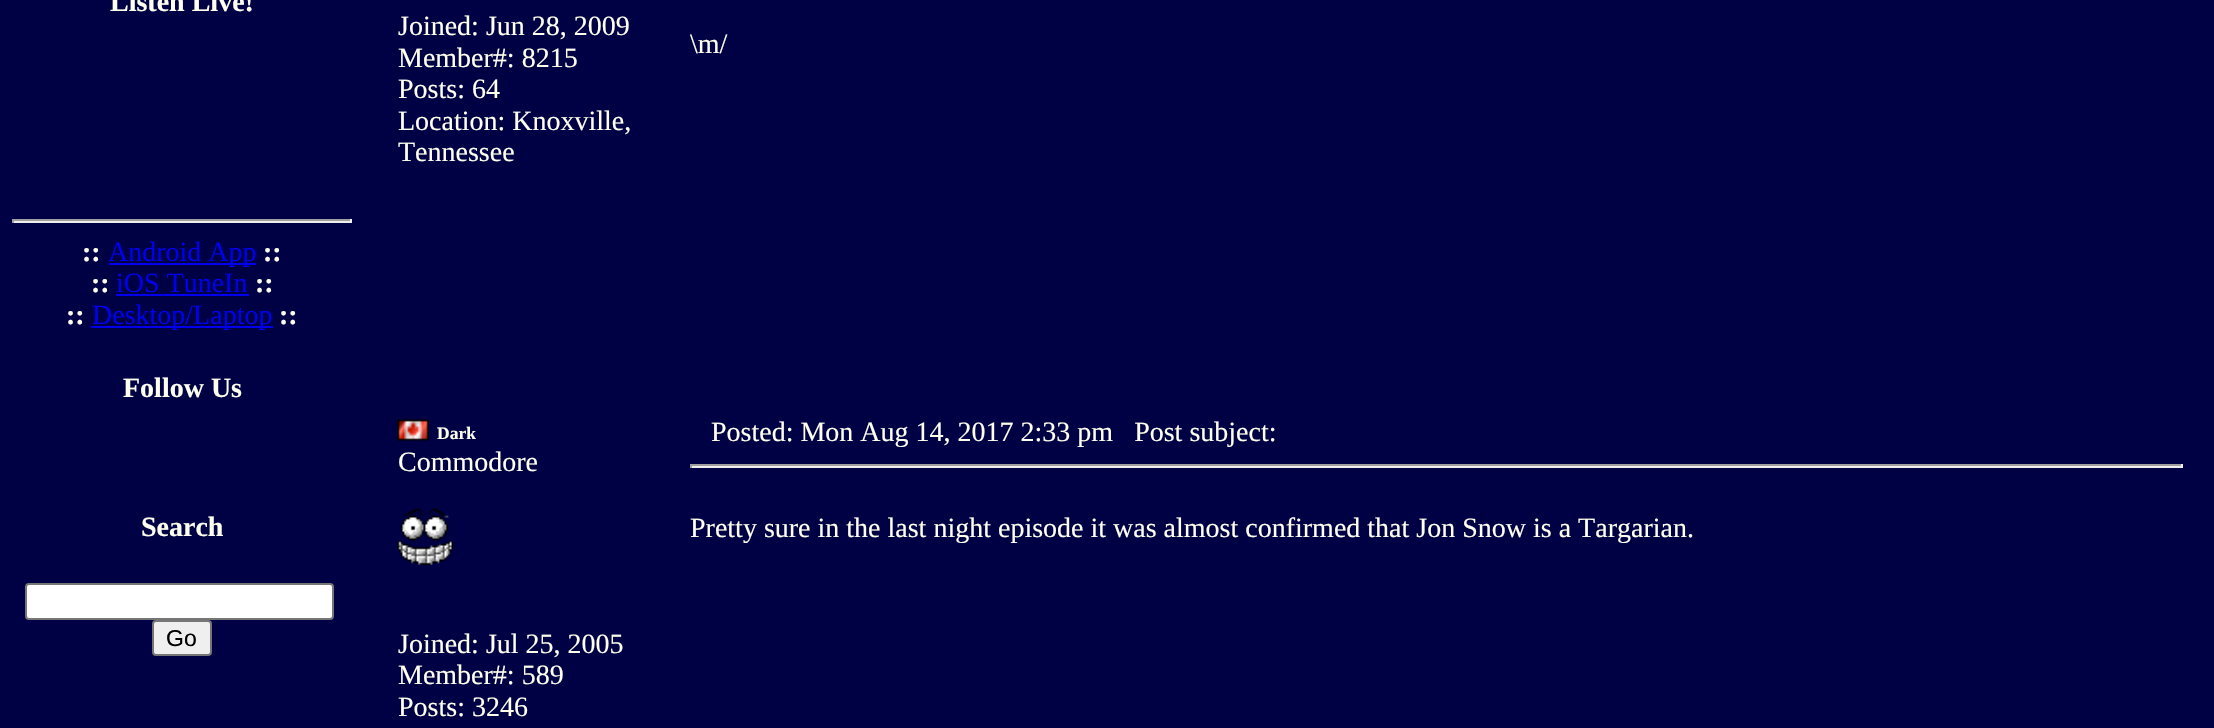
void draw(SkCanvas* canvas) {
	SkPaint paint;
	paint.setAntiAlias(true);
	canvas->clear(0xff000044);
	SkFont f1(fontMgr->matchFamilyStyle("Liberation Serif", SkFontStyle::Bold()), 28);
	f1.setSubpixel(true);
	paint.setColor(0xffffffee);
	canvas->drawString("Listen Live!", 110, 11, f1, paint);
	paint.setColor(0xff9f9f9f);
	canvas->drawRect(SkRect::MakeXYWH(12, 219, 340, 2), paint);
	paint.setColor(0xffeeeeee);
	canvas->drawRect(SkRect::MakeXYWH(350, 219, 2, 4), paint);
	canvas->drawRect(SkRect::MakeXYWH(12, 221, 340, 2), paint);
	paint.setColor(0xff9f9f9f);
	canvas->drawRect(SkRect::MakeXYWH(12, 219, 2, 4), paint);
	paint.setColor(0xffffffee);
	canvas->drawString("::", 82, 261, f1, paint);
	paint.setColor(0xff0000ee);
	canvas->drawRect(SkRect::MakeXYWH(109, 263, 147, 2), paint);
	SkFont f2(fontMgr->matchFamilyStyle("Liberation Serif", SkFontStyle::Normal()), 28);
	f2.setSubpixel(true);
	canvas->drawString("Android App", 108, 261, f2, paint);
	paint.setColor(0xffffffee);
	canvas->drawString("::", 263, 261, f1, paint);
	canvas->drawString("::", 91, 292, f1, paint);
	paint.setColor(0xff0000ee);
	canvas->drawString("iOS TuneIn", 116, 292, f2, paint);
	canvas->drawRect(SkRect::MakeXYWH(116, 294, 133, 2), paint);
	paint.setColor(0xffffffee);
	canvas->drawString("::", 255, 292, f1, paint);
	canvas->drawString("::", 66, 324, f1, paint);
	paint.setColor(0xff0000ee);
	canvas->drawRect(SkRect::MakeXYWH(91, 326, 182, 2), paint);
	canvas->drawString("Desktop/Laptop", 92, 324, f2, paint);
	paint.setColor(0xffffffee);
	canvas->drawString("::", 279, 324, f1, paint);
	canvas->drawString("Follow Us", 123, 397, f1, paint);
	canvas->drawString("Search", 141, 536, f1, paint);
	paint.setColor(0xffffffff);
	canvas->drawRoundRect(SkRect::MakeXYWH(26, 584, 307, 35), 3, 3, paint);
	paint.setStroke(true);
	paint.setStrokeWidth(2);
	paint.setColor(0xff767676);
	canvas->drawRoundRect(SkRect::MakeXYWH(26, 584, 307, 35), 3, 3, paint);
	paint.setStroke(false);
	paint.setColor(0xffefefef);
	canvas->drawRoundRect(SkRect::MakeXYWH(153, 621, 58, 34), 3, 3, paint);
	paint.setStroke(true);
	paint.setColor(0xff767676);
	canvas->drawRoundRect(SkRect::MakeXYWH(153, 621, 58, 34), 3, 3, paint);
	SkFont f3(fontMgr->matchFamilyStyle("Liberation Sans", SkFontStyle::Normal()), 23);
	f3.setSubpixel(true);
	paint.setStroke(false);
	paint.setColor(0xff000000);
	canvas->drawString("Go", 166, 646, f3, paint);
	paint.setColor(0xffffffee);
	canvas->drawString("Joined: Jun 28, 2009", 398, 35, f2, paint);
	canvas->drawString("Member#: 8215", 398, 67, f2, paint);
	canvas->drawString("Posts: 64", 398, 98, f2, paint);
	canvas->drawString("Location: Knoxville,", 398, 130, f2, paint);
	canvas->drawString("Tennessee", 398, 161, f2, paint);
	canvas->drawString("\\m/", 690, 53, f2, paint);
	canvas->drawImageRect(SkImages::DeferredFromEncodedData(SkData::MakeFromFileName("img1.png")), SkRect::MakeXYWH(397, 419, 32, 22), SkSamplingOptions());
	SkFont f4(fontMgr->matchFamilyStyle("Liberation Serif", SkFontStyle::Bold()), 17.5);
	f4.setSubpixel(true);
	canvas->drawString("Dark", 437, 439, f4, paint);
	canvas->drawString("Commodore", 398, 471, f2, paint);
	canvas->drawImageRect(SkImages::DeferredFromEncodedData(SkData::MakeFromFileName("img2.png")), SkRect::MakeXYWH(397, 508, 57, 57), SkSamplingOptions());
	canvas->drawString("Joined: Jul 25, 2005", 398, 653, f2, paint);
	canvas->drawString("Member#: 589", 398, 684, f2, paint);
	canvas->drawString("Posts: 3246", 398, 716, f2, paint);
	canvas->drawString("Posted: Mon Aug 14, 2017 2:33 pm   Post subject:", 711, 441, f2, paint);
	paint.setColor(0xff9f9f9f);
	canvas->drawRect(SkRect::MakeXYWH(690, 464, 1492, 2), paint);
	paint.setColor(0xffeeeeee);
	canvas->drawRect(SkRect::MakeXYWH(2181, 464, 2, 4), paint);
	canvas->drawRect(SkRect::MakeXYWH(690, 466, 1492, 2), paint);
	paint.setColor(0xff9f9f9f);
	canvas->drawRect(SkRect::MakeXYWH(690, 464, 2, 4), paint);
	paint.setColor(0xffffffee);
	canvas->drawString("Pretty sure in the last night episode it was almost confirmed that Jon Snow is a Targarian.", 690, 537, f2, paint);
}
